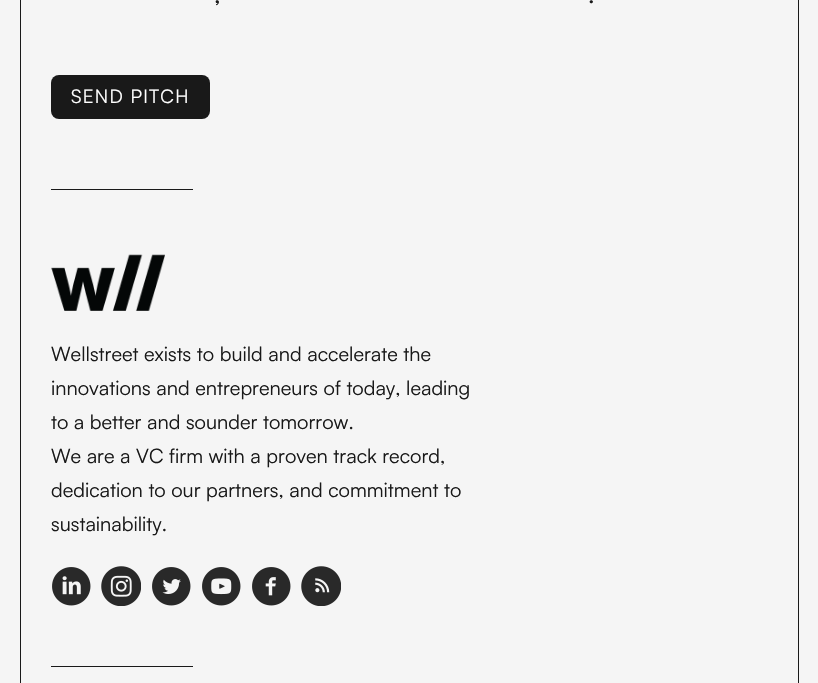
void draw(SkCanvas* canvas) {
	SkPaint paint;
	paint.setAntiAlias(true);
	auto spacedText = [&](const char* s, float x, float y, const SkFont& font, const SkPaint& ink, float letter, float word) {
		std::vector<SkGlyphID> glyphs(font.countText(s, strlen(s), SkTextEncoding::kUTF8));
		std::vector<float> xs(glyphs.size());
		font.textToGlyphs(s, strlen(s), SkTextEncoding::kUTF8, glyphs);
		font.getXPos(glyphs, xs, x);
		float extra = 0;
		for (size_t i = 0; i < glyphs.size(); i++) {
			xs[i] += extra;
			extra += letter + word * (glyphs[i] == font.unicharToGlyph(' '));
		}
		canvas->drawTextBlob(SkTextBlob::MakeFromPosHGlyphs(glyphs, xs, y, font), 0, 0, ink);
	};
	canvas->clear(0xfff5f5f5);
	paint.setStroke(true);
	paint.setStrokeWidth(1);
	paint.setColor(0xff191919);
	canvas->drawRect(SkRect::MakeXYWH(20.5, -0.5, 778, 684), paint);
	SkFont f1(fontMgr->matchFamilyStyle("Satoshi", SkFontStyle::Normal()), 25);
	f1.setSubpixel(true);
	paint.setStroke(false);
	canvas->drawString(",", 214, 3, f1, paint);
	canvas->drawString(".", 588, 3, f1, paint);
	canvas->drawRoundRect(SkRect::MakeXYWH(51, 75, 159, 44), 8, 8, paint);
	SkFont f2(fontMgr->matchFamilyStyle("Satoshi", SkFontStyle::Normal()), 18.75);
	f2.setSubpixel(true);
	paint.setColor(0xffffffff);
	spacedText("SEND PITCH", 71, 103, f2, paint, 1.25, 0);
	paint.setColor(0xff191919);
	canvas->drawRect(SkRect::MakeXYWH(51, 189, 142, 1), paint);
	canvas->drawImageRect(SkImages::DeferredFromEncodedData(SkData::MakeFromFileName("img1.png")), SkRect::MakeXYWH(51, 254, 114, 57), SkSamplingOptions());
	SkFont f3(fontMgr->matchFamilyStyle("Satoshi", SkFontStyle::Normal()), 20);
	f3.setSubpixel(true);
	canvas->drawString("Wellstreet exists to build and accelerate the", 51, 361, f3, paint);
	canvas->drawString("innovations and entrepreneurs of today, leading", 51, 395, f3, paint);
	canvas->drawString("to a better and sounder tomorrow.", 51, 429, f3, paint);
	canvas->drawString("We are a VC firm with a proven track record,", 51, 463, f3, paint);
	canvas->drawString("dedication to our partners, and commitment to", 51, 497, f3, paint);
	canvas->drawString("sustainability.", 51, 531, f3, paint);
	canvas->drawImageRect(SkImages::DeferredFromEncodedData(SkData::MakeFromFileName("img2.png")), SkRect::MakeXYWH(52, 567, 39, 39), SkSamplingOptions());
	canvas->drawImageRect(SkImages::DeferredFromEncodedData(SkData::MakeFromFileName("img3.png")), SkRect::MakeXYWH(101, 566, 40, 40), SkSamplingOptions());
	canvas->drawImageRect(SkImages::DeferredFromEncodedData(SkData::MakeFromFileName("img4.png")), SkRect::MakeXYWH(152, 567, 39, 39), SkSamplingOptions());
	canvas->drawImageRect(SkImages::DeferredFromEncodedData(SkData::MakeFromFileName("img5.png")), SkRect::MakeXYWH(202, 567, 39, 39), SkSamplingOptions());
	canvas->drawImageRect(SkImages::DeferredFromEncodedData(SkData::MakeFromFileName("img6.png")), SkRect::MakeXYWH(252, 567, 39, 39), SkSamplingOptions());
	canvas->drawImageRect(SkImages::DeferredFromEncodedData(SkData::MakeFromFileName("img7.png")), SkRect::MakeXYWH(301, 566, 40, 40), SkSamplingOptions());
	canvas->drawRect(SkRect::MakeXYWH(51, 666, 142, 1), paint);
}
